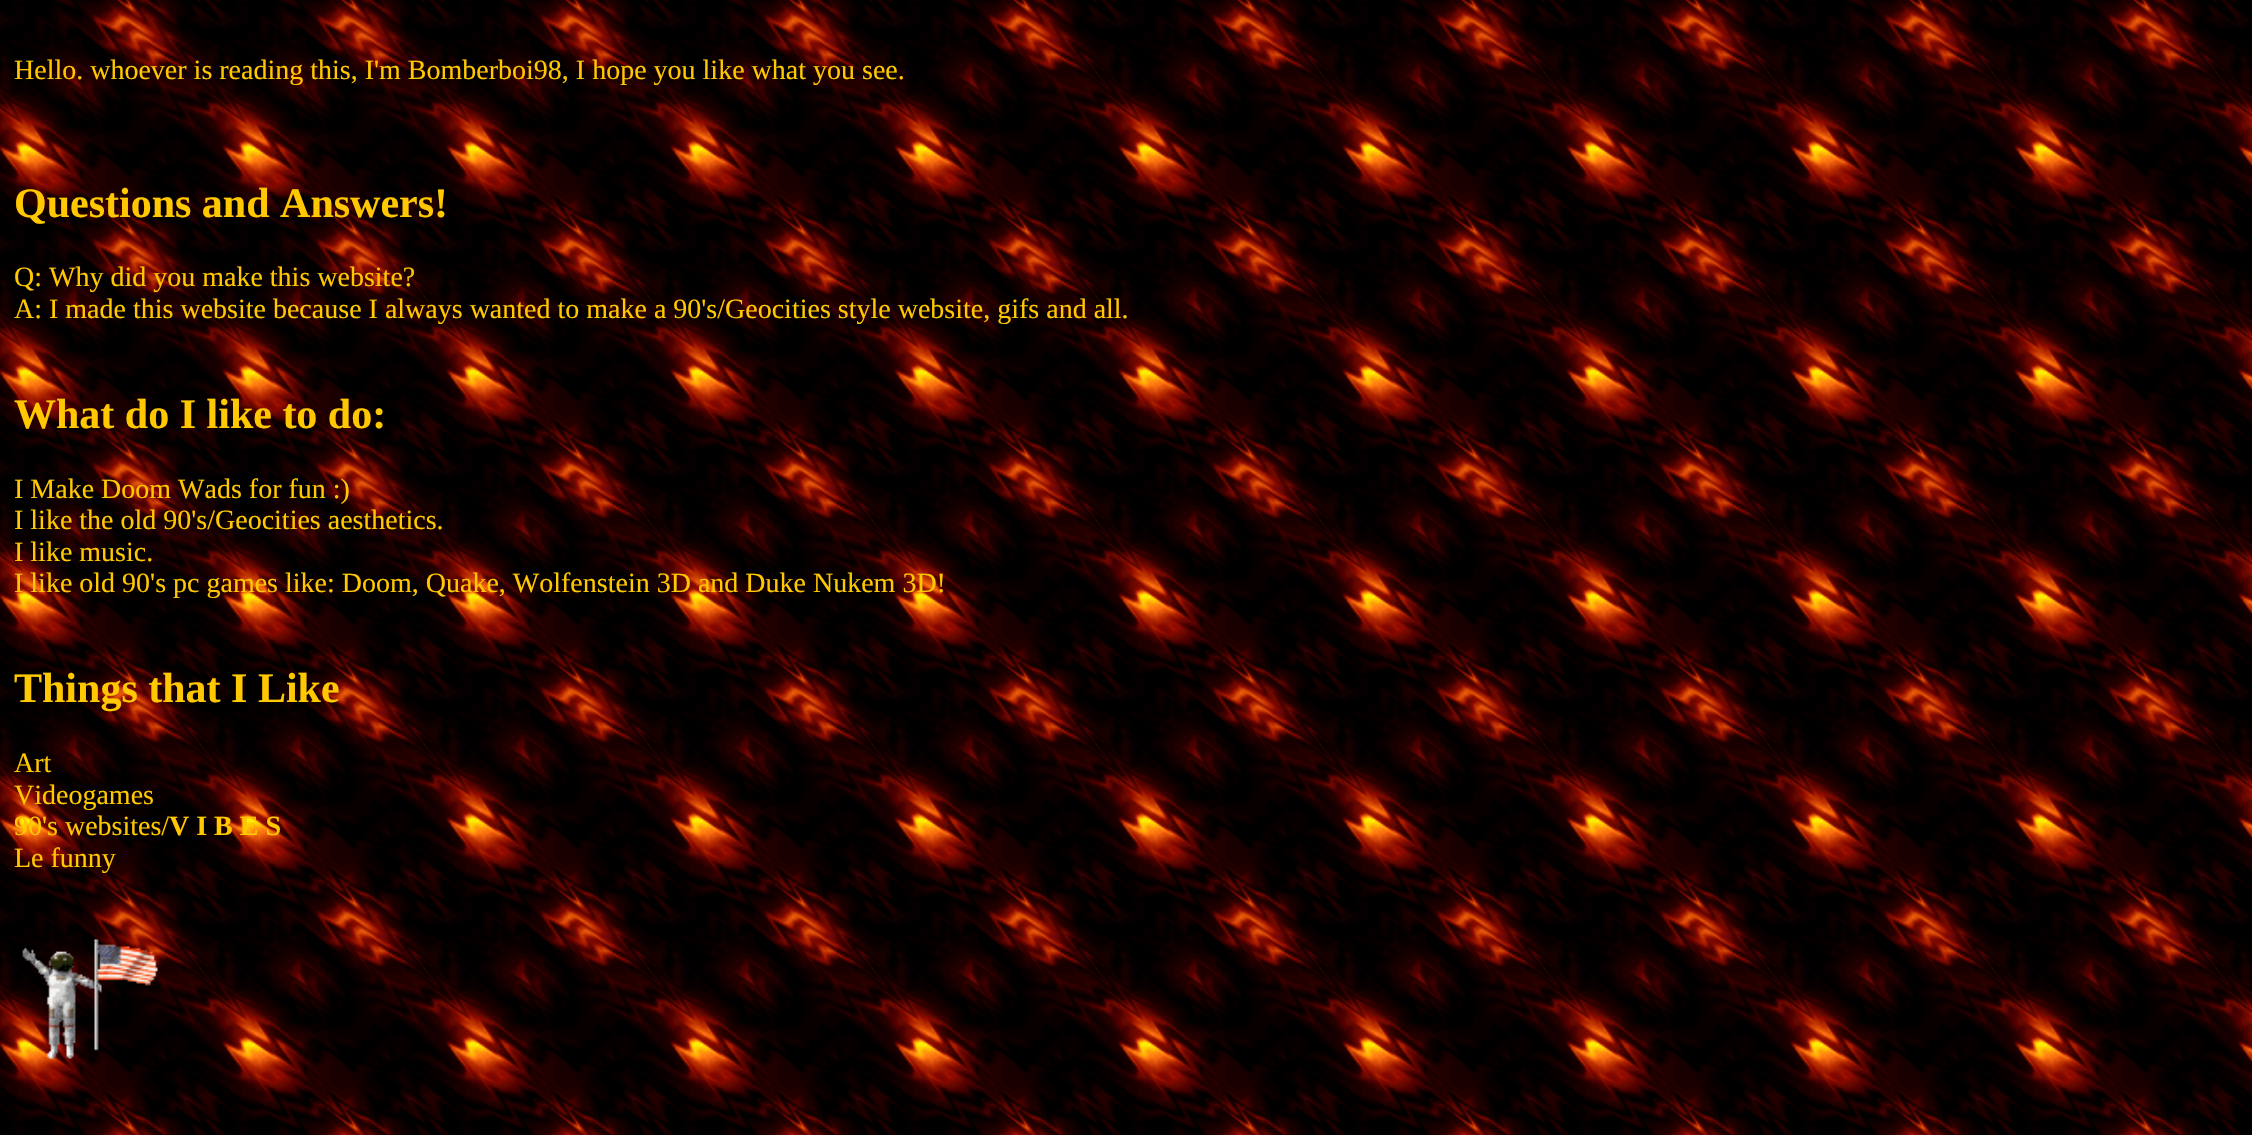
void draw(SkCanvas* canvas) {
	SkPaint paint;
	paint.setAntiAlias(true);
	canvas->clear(0xffffffff);
	canvas->drawImageRect(SkImages::DeferredFromEncodedData(SkData::MakeFromFileName("img1.png")), SkRect::MakeXYWH(0, 0, 2252, 1135), SkSamplingOptions());
	SkFont f1(fontMgr->matchFamilyStyle("Liberation Serif", SkFontStyle::Normal()), 28);
	f1.setSubpixel(true);
	paint.setColor(0xffffc800);
	canvas->drawString("Hello. whoever is reading this, I'm Bomberboi98, I hope you like what you see.", 14, 79, f1, paint);
	SkFont f2(fontMgr->matchFamilyStyle("Liberation Serif", SkFontStyle::Bold()), 42);
	f2.setSubpixel(true);
	canvas->drawString("Questions and Answers!", 14, 217, f2, paint);
	canvas->drawString("Q: Why did you make this website?", 14, 286, f1, paint);
	canvas->drawString("A: I made this website because I always wanted to make a 90's/Geocities style website, gifs and all.", 14, 318, f1, paint);
	canvas->drawString("What do I like to do:", 14, 428, f2, paint);
	canvas->drawString("I Make Doom Wads for fun :)", 14, 498, f1, paint);
	canvas->drawString("I like the old 90's/Geocities aesthetics.", 14, 529, f1, paint);
	canvas->drawString("I like music.", 14, 561, f1, paint);
	canvas->drawString("I like old 90's pc games like: Doom, Quake, Wolfenstein 3D and Duke Nukem 3D!", 14, 592, f1, paint);
	canvas->drawString("Things that I Like", 14, 702, f2, paint);
	canvas->drawString("Art", 14, 772, f1, paint);
	canvas->drawString("Videogames", 14, 804, f1, paint);
	canvas->drawString("90's websites/", 14, 835, f1, paint);
	SkFont f3(fontMgr->matchFamilyStyle("Liberation Serif", SkFontStyle::Bold()), 28);
	f3.setSubpixel(true);
	canvas->drawString("V I B E S", 169, 835, f3, paint);
	canvas->drawString("Le funny", 14, 867, f1, paint);
	canvas->drawImageRect(SkImages::DeferredFromEncodedData(SkData::MakeFromFileName("img2.png")), SkRect::MakeXYWH(22, 939, 136, 120), SkSamplingOptions());
}
